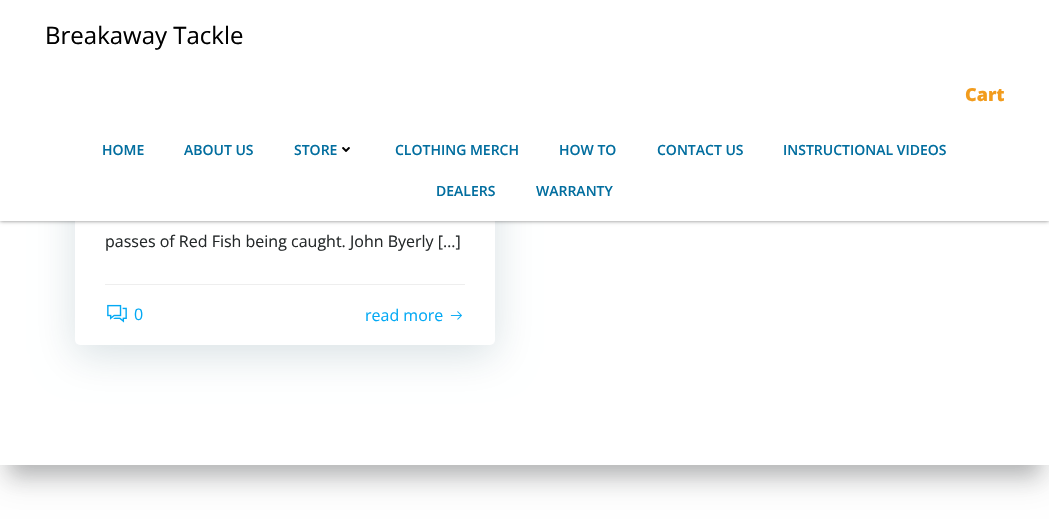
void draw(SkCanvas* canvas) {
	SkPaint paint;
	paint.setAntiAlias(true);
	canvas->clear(0xffffffff);
	paint.setColor(0x14000000);
	paint.setMaskFilter(SkMaskFilter::MakeBlur(kNormal_SkBlurStyle, 15));
	canvas->drawRect(SkRect::MakeXYWH(0, 0, 1049, 485), paint);
	paint.setMaskFilter(nullptr);
	paint.setColor(0x4d313439);
	paint.setMaskFilter(SkMaskFilter::MakeBlur(kNormal_SkBlurStyle, 10));
	canvas->drawRect(SkRect::MakeXYWH(10, 10, 1029, 465), paint);
	paint.setMaskFilter(nullptr);
	paint.setColor(0xffffffff);
	canvas->drawRect(SkRect::MakeXYWH(0, 221, 1049, 244), paint);
	paint.setColor(0x2601334a);
	paint.setMaskFilter(SkMaskFilter::MakeBlur(kNormal_SkBlurStyle, 20));
	canvas->drawRoundRect(SkRect::MakeXYWH(75, 80, 420, 275), 5, 5, paint);
	paint.setMaskFilter(nullptr);
	paint.setColor(0xffffffff);
	canvas->drawRoundRect(SkRect::MakeXYWH(75, 70, 420, 275), 5, 5, paint);
	paint.setColor(0x80000000);
	paint.setMaskFilter(SkMaskFilter::MakeBlur(kNormal_SkBlurStyle, 2));
	canvas->drawRect(SkRect::MakeXYWH(0, 0, 1049, 221), paint);
	paint.setMaskFilter(nullptr);
	paint.setColor(0xffffffff);
	canvas->drawRect(SkRect::MakeXYWH(0, 0, 1049, 221), paint);
	SkFont f1(fontMgr->matchFamilyStyle("Open Sans", SkFontStyle::Normal()), 24);
	f1.setSubpixel(true);
	paint.setColor(0xff000000);
	canvas->drawString("Breakaway Tackle", 45, 44, f1, paint);
	SkFont f2(fontMgr->matchFamilyStyle("Open Sans", SkFontStyle(800, SkFontStyle::kNormal_Width, SkFontStyle::kUpright_Slant)), 18);
	f2.setSubpixel(true);
	paint.setColor(0xfff29c1d);
	canvas->drawString("Cart", 965, 101, f2, paint);
	SkFont f3(fontMgr->matchFamilyStyle("Open Sans", SkFontStyle(600, SkFontStyle::kNormal_Width, SkFontStyle::kUpright_Slant)), 14);
	f3.setSubpixel(true);
	paint.setColor(0xff026e9f);
	canvas->drawString("HOME", 102, 155, f3, paint);
	canvas->drawString("ABOUT US", 184, 155, f3, paint);
	canvas->drawString("STORE", 294, 155, f3, paint);
	canvas->drawImageRect(SkImages::DeferredFromEncodedData(SkData::MakeFromFileName("img1.png")), SkRect::MakeXYWH(342, 147, 8, 5), SkSamplingOptions());
	canvas->drawString("CLOTHING MERCH", 395, 155, f3, paint);
	canvas->drawString("HOW TO", 559, 155, f3, paint);
	canvas->drawString("CONTACT US", 657, 155, f3, paint);
	canvas->drawString("INSTRUCTIONAL VIDEOS", 783, 155, f3, paint);
	canvas->drawString("DEALERS", 436, 196, f3, paint);
	canvas->drawString("WARRANTY", 536, 196, f3, paint);
	paint.setColor(0xffeeeeee);
	canvas->drawRect(SkRect::MakeXYWH(105, 284, 360, 1), paint);
	SkFont f4(fontMgr->matchFamilyStyle("Open Sans", SkFontStyle::Normal()), 16);
	f4.setSubpixel(true);
	paint.setColor(0xff25292a);
	canvas->drawString("passes of Red Fish being caught. John Byerly […]", 105, 247, f4, paint);
	canvas->drawImageRect(SkImages::DeferredFromEncodedData(SkData::MakeFromFileName("img2.png")), SkRect::MakeXYWH(107, 304, 20, 19), SkSamplingOptions());
	paint.setColor(0xff03a9f4);
	canvas->drawString("0", 134, 320, f4, paint);
	canvas->drawString("read more", 365, 321, f4, paint);
	canvas->drawImageRect(SkImages::DeferredFromEncodedData(SkData::MakeFromFileName("img3.png")), SkRect::MakeXYWH(450, 311, 12, 9), SkSamplingOptions());
}
